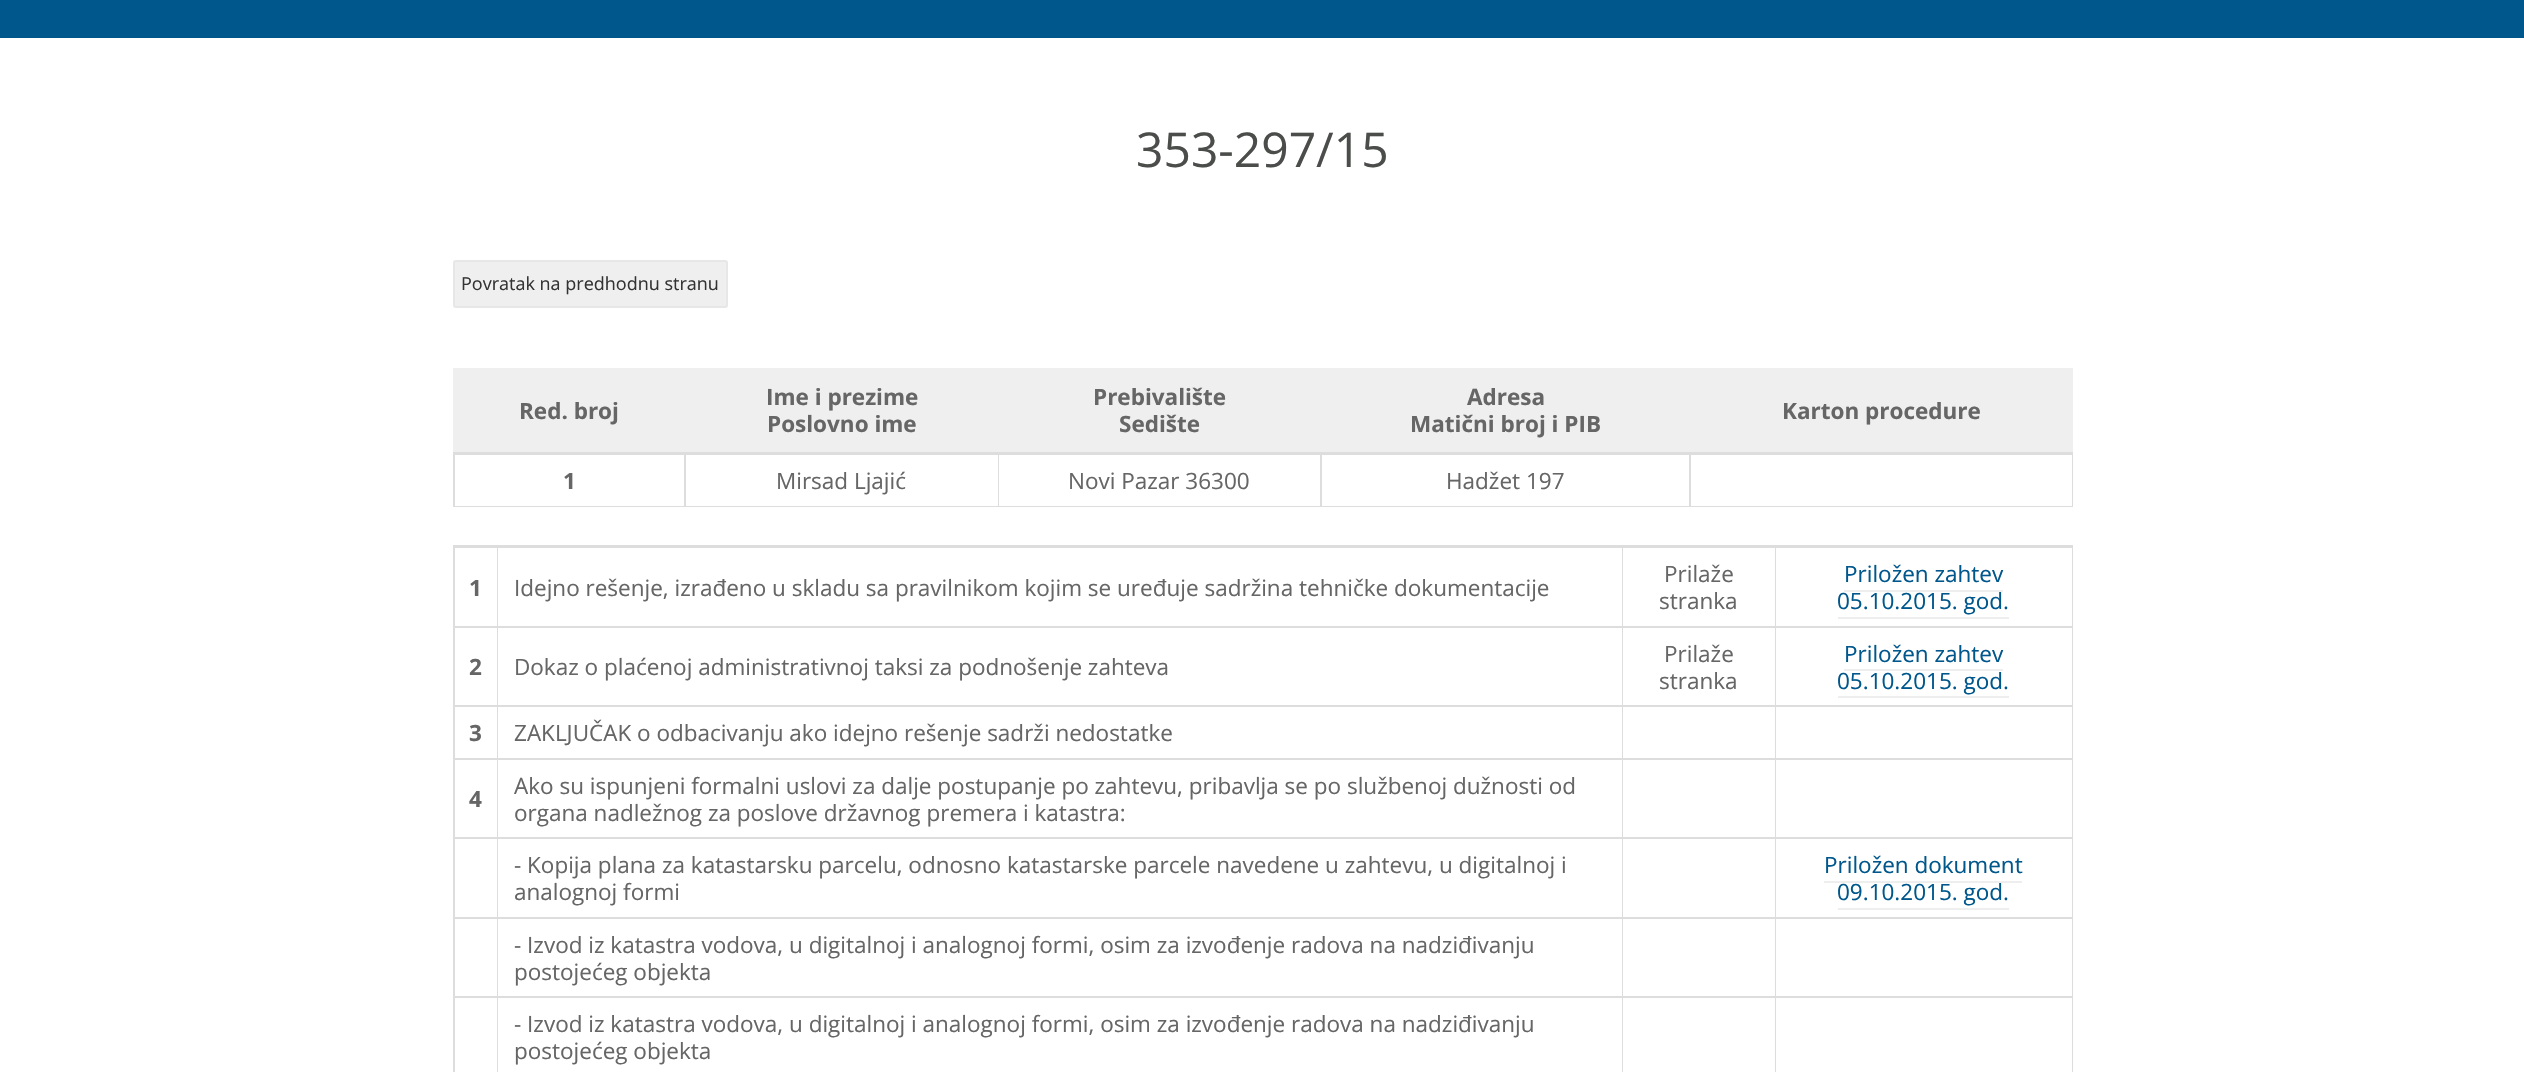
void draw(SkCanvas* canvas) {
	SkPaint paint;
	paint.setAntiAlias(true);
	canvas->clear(0xffffffff);
	paint.setColor(0xff00578c);
	canvas->drawRect(SkRect::MakeXYWH(0, 0, 2524, 38), paint);
	SkFont f1(fontMgr->matchFamilyStyle("Open Sans", SkFontStyle::Normal()), 48);
	f1.setSubpixel(true);
	paint.setColor(0xff4b4d4b);
	canvas->drawString("353-297/15", 1136, 167, f1, paint);
	paint.setColor(0xffefefef);
	canvas->drawRoundRect(SkRect::MakeXYWH(454, 261, 273, 46), 2, 2, paint);
	paint.setStroke(true);
	paint.setStrokeWidth(2);
	paint.setColor(0xffe7e7e7);
	canvas->drawRoundRect(SkRect::MakeXYWH(454, 261, 273, 46), 2, 2, paint);
	SkFont f2(fontMgr->matchFamilyStyle("Open Sans", SkFontStyle::Normal()), 18);
	f2.setSubpixel(true);
	paint.setStroke(false);
	paint.setColor(0xff333333);
	canvas->drawString("Povratak na predhodnu stranu", 461, 290, f2, paint);
	paint.setColor(0xffdddddd);
	canvas->drawRect(SkRect::MakeXYWH(453, 506, 1620, 1), paint);
	paint.setColor(0xffefefef);
	canvas->drawRect(SkRect::MakeXYWH(453, 368, 1620, 84), paint);
	paint.setColor(0xffdddddd);
	canvas->drawRect(SkRect::MakeXYWH(453, 452, 1620, 3), paint);
	SkFont f3(fontMgr->matchFamilyStyle("Open Sans", SkFontStyle::Bold()), 22.5);
	f3.setSubpixel(true);
	paint.setColor(0xff666666);
	canvas->drawString("Red. broj", 519, 419, f3, paint);
	canvas->drawString("Ime i prezime", 766, 405, f3, paint);
	canvas->drawString("Poslovno ime", 767, 432, f3, paint);
	canvas->drawString("Prebivalište", 1093, 405, f3, paint);
	canvas->drawString("Sedište", 1119, 432, f3, paint);
	canvas->drawString("Adresa", 1467, 405, f3, paint);
	canvas->drawString("Matični broj i PIB", 1410, 432, f3, paint);
	canvas->drawString("Karton procedure", 1782, 419, f3, paint);
	paint.setColor(0xffdddddd);
	canvas->drawRect(SkRect::MakeXYWH(684, 455, 2, 51), paint);
	canvas->drawRect(SkRect::MakeXYWH(453, 455, 2, 51), paint);
	paint.setColor(0xff666666);
	canvas->drawString("1", 563, 489, f3, paint);
	paint.setColor(0xffdddddd);
	canvas->drawRect(SkRect::MakeXYWH(998, 455, 1, 51), paint);
	SkFont f4(fontMgr->matchFamilyStyle("Open Sans", SkFontStyle::Normal()), 22.5);
	f4.setSubpixel(true);
	paint.setColor(0xff666666);
	canvas->drawString("Mirsad Ljajić", 776, 489, f4, paint);
	paint.setColor(0xffdddddd);
	canvas->drawRect(SkRect::MakeXYWH(1320, 455, 2, 51), paint);
	paint.setColor(0xff666666);
	canvas->drawString("Novi Pazar 36300", 1068, 489, f4, paint);
	paint.setColor(0xffdddddd);
	canvas->drawRect(SkRect::MakeXYWH(1689, 455, 2, 51), paint);
	paint.setColor(0xff666666);
	canvas->drawString("Hadžet 197", 1446, 489, f4, paint);
	paint.setColor(0xffdddddd);
	canvas->drawRect(SkRect::MakeXYWH(2072, 455, 1, 51), paint);
	canvas->drawRect(SkRect::MakeXYWH(453, 545, 1620, 3), paint);
	canvas->drawRect(SkRect::MakeXYWH(497, 548, 1, 78), paint);
	canvas->drawRect(SkRect::MakeXYWH(453, 548, 2, 78), paint);
	paint.setColor(0xff666666);
	canvas->drawString("1", 469, 596, f3, paint);
	paint.setColor(0xffdddddd);
	canvas->drawRect(SkRect::MakeXYWH(1622, 548, 1, 78), paint);
	paint.setColor(0xff666666);
	canvas->drawString("Idejno rešenje, izrađeno u skladu sa pravilnikom kojim se uređuje sadržina tehničke dokumentacije", 514, 596, f4, paint);
	paint.setColor(0xffdddddd);
	canvas->drawRect(SkRect::MakeXYWH(1775, 548, 1, 78), paint);
	paint.setColor(0xff666666);
	canvas->drawString("Prilaže", 1664, 582, f4, paint);
	canvas->drawString("stranka", 1659, 609, f4, paint);
	paint.setColor(0xffdddddd);
	canvas->drawRect(SkRect::MakeXYWH(2072, 548, 1, 78), paint);
	paint.setColor(0xff00578c);
	canvas->drawString("Priložen zahtev", 1844, 582, f4, paint);
	paint.setColor(0xffeeeeee);
	canvas->drawRect(SkRect::MakeXYWH(1844, 590, 159, 2), paint);
	paint.setColor(0xff00578c);
	canvas->drawString("05.10.2015. god.", 1837, 609, f4, paint);
	paint.setColor(0xffeeeeee);
	canvas->drawRect(SkRect::MakeXYWH(1838, 617, 171, 2), paint);
	paint.setColor(0xffdddddd);
	canvas->drawRect(SkRect::MakeXYWH(453, 626, 1620, 2), paint);
	canvas->drawRect(SkRect::MakeXYWH(497, 626, 1, 79), paint);
	canvas->drawRect(SkRect::MakeXYWH(453, 626, 2, 79), paint);
	paint.setColor(0xff666666);
	canvas->drawString("2", 469, 675, f3, paint);
	paint.setColor(0xffdddddd);
	canvas->drawRect(SkRect::MakeXYWH(1622, 626, 1, 79), paint);
	paint.setColor(0xff666666);
	canvas->drawString("Dokaz o plaćenoj administrativnoj taksi za podnošenje zahteva", 514, 675, f4, paint);
	paint.setColor(0xffdddddd);
	canvas->drawRect(SkRect::MakeXYWH(1775, 626, 1, 79), paint);
	paint.setColor(0xff666666);
	canvas->drawString("Prilaže", 1664, 662, f4, paint);
	canvas->drawString("stranka", 1659, 689, f4, paint);
	paint.setColor(0xffdddddd);
	canvas->drawRect(SkRect::MakeXYWH(2072, 626, 1, 79), paint);
	paint.setColor(0xff00578c);
	canvas->drawString("Priložen zahtev", 1844, 662, f4, paint);
	canvas->drawString("05.10.2015. god.", 1837, 689, f4, paint);
	paint.setColor(0xffeeeeee);
	canvas->drawRect(SkRect::MakeXYWH(1844, 669, 159, 2), paint);
	canvas->drawRect(SkRect::MakeXYWH(1838, 696, 171, 2), paint);
	paint.setColor(0xffdddddd);
	canvas->drawRect(SkRect::MakeXYWH(453, 705, 1620, 2), paint);
	canvas->drawRect(SkRect::MakeXYWH(497, 705, 1, 53), paint);
	canvas->drawRect(SkRect::MakeXYWH(453, 705, 2, 53), paint);
	paint.setColor(0xff666666);
	canvas->drawString("3", 469, 741, f3, paint);
	paint.setColor(0xffdddddd);
	canvas->drawRect(SkRect::MakeXYWH(1622, 705, 1, 53), paint);
	paint.setColor(0xff666666);
	canvas->drawString("ZAKLJUČAK o odbacivanju ako idejno rešenje sadrži nedostatke", 514, 741, f4, paint);
	paint.setColor(0xffdddddd);
	canvas->drawRect(SkRect::MakeXYWH(1775, 705, 1, 53), paint);
	canvas->drawRect(SkRect::MakeXYWH(2072, 705, 1, 53), paint);
	canvas->drawRect(SkRect::MakeXYWH(453, 758, 1620, 2), paint);
	canvas->drawRect(SkRect::MakeXYWH(497, 758, 1, 79), paint);
	canvas->drawRect(SkRect::MakeXYWH(453, 758, 2, 79), paint);
	paint.setColor(0xff666666);
	canvas->drawString("4", 469, 807, f3, paint);
	paint.setColor(0xffdddddd);
	canvas->drawRect(SkRect::MakeXYWH(1622, 758, 1, 79), paint);
	paint.setColor(0xff666666);
	canvas->drawString("Ako su ispunjeni formalni uslovi za dalje postupanje po zahtevu, pribavlja se po službenoj dužnosti od", 514, 794, f4, paint);
	canvas->drawString("organa nadležnog za poslove državnog premera i katastra:", 514, 821, f4, paint);
	paint.setColor(0xffdddddd);
	canvas->drawRect(SkRect::MakeXYWH(1775, 758, 1, 79), paint);
	canvas->drawRect(SkRect::MakeXYWH(2072, 758, 1, 79), paint);
	canvas->drawRect(SkRect::MakeXYWH(453, 837, 1620, 2), paint);
	canvas->drawRect(SkRect::MakeXYWH(497, 837, 1, 80), paint);
	canvas->drawRect(SkRect::MakeXYWH(453, 837, 2, 80), paint);
	canvas->drawRect(SkRect::MakeXYWH(1622, 837, 1, 80), paint);
	paint.setColor(0xff666666);
	canvas->drawString("- Kopija plana za katastarsku parcelu, odnosno katastarske parcele navedene u zahtevu, u digitalnoj i", 514, 873, f4, paint);
	canvas->drawString("analognoj formi", 514, 900, f4, paint);
	paint.setColor(0xffdddddd);
	canvas->drawRect(SkRect::MakeXYWH(1775, 837, 1, 80), paint);
	canvas->drawRect(SkRect::MakeXYWH(2072, 837, 1, 80), paint);
	paint.setColor(0xff00578c);
	canvas->drawString("Priložen dokument", 1824, 873, f4, paint);
	paint.setColor(0xffeeeeee);
	canvas->drawRect(SkRect::MakeXYWH(1824, 881, 198, 2), paint);
	paint.setColor(0xff00578c);
	canvas->drawString("09.10.2015. god.", 1837, 900, f4, paint);
	paint.setColor(0xffeeeeee);
	canvas->drawRect(SkRect::MakeXYWH(1838, 908, 171, 2), paint);
	paint.setColor(0xffdddddd);
	canvas->drawRect(SkRect::MakeXYWH(453, 917, 1620, 2), paint);
	canvas->drawRect(SkRect::MakeXYWH(497, 917, 1, 79), paint);
	canvas->drawRect(SkRect::MakeXYWH(453, 917, 2, 79), paint);
	canvas->drawRect(SkRect::MakeXYWH(1622, 917, 1, 79), paint);
	paint.setColor(0xff666666);
	canvas->drawString("- Izvod iz katastra vodova, u digitalnoj i analognoj formi, osim za izvođenje radova na nadziđivanju", 514, 953, f4, paint);
	canvas->drawString("postojećeg objekta", 514, 980, f4, paint);
	paint.setColor(0xffdddddd);
	canvas->drawRect(SkRect::MakeXYWH(1775, 917, 1, 79), paint);
	canvas->drawRect(SkRect::MakeXYWH(2072, 917, 1, 79), paint);
	canvas->drawRect(SkRect::MakeXYWH(453, 996, 1620, 2), paint);
	canvas->drawRect(SkRect::MakeXYWH(497, 996, 1, 76), paint);
	canvas->drawRect(SkRect::MakeXYWH(453, 996, 2, 76), paint);
	canvas->drawRect(SkRect::MakeXYWH(1622, 996, 1, 76), paint);
	paint.setColor(0xff666666);
	canvas->drawString("- Izvod iz katastra vodova, u digitalnoj i analognoj formi, osim za izvođenje radova na nadziđivanju", 514, 1032, f4, paint);
	canvas->drawString("postojećeg objekta", 514, 1059, f4, paint);
	paint.setColor(0xffdddddd);
	canvas->drawRect(SkRect::MakeXYWH(1775, 996, 1, 76), paint);
	canvas->drawRect(SkRect::MakeXYWH(2072, 996, 1, 76), paint);
}
